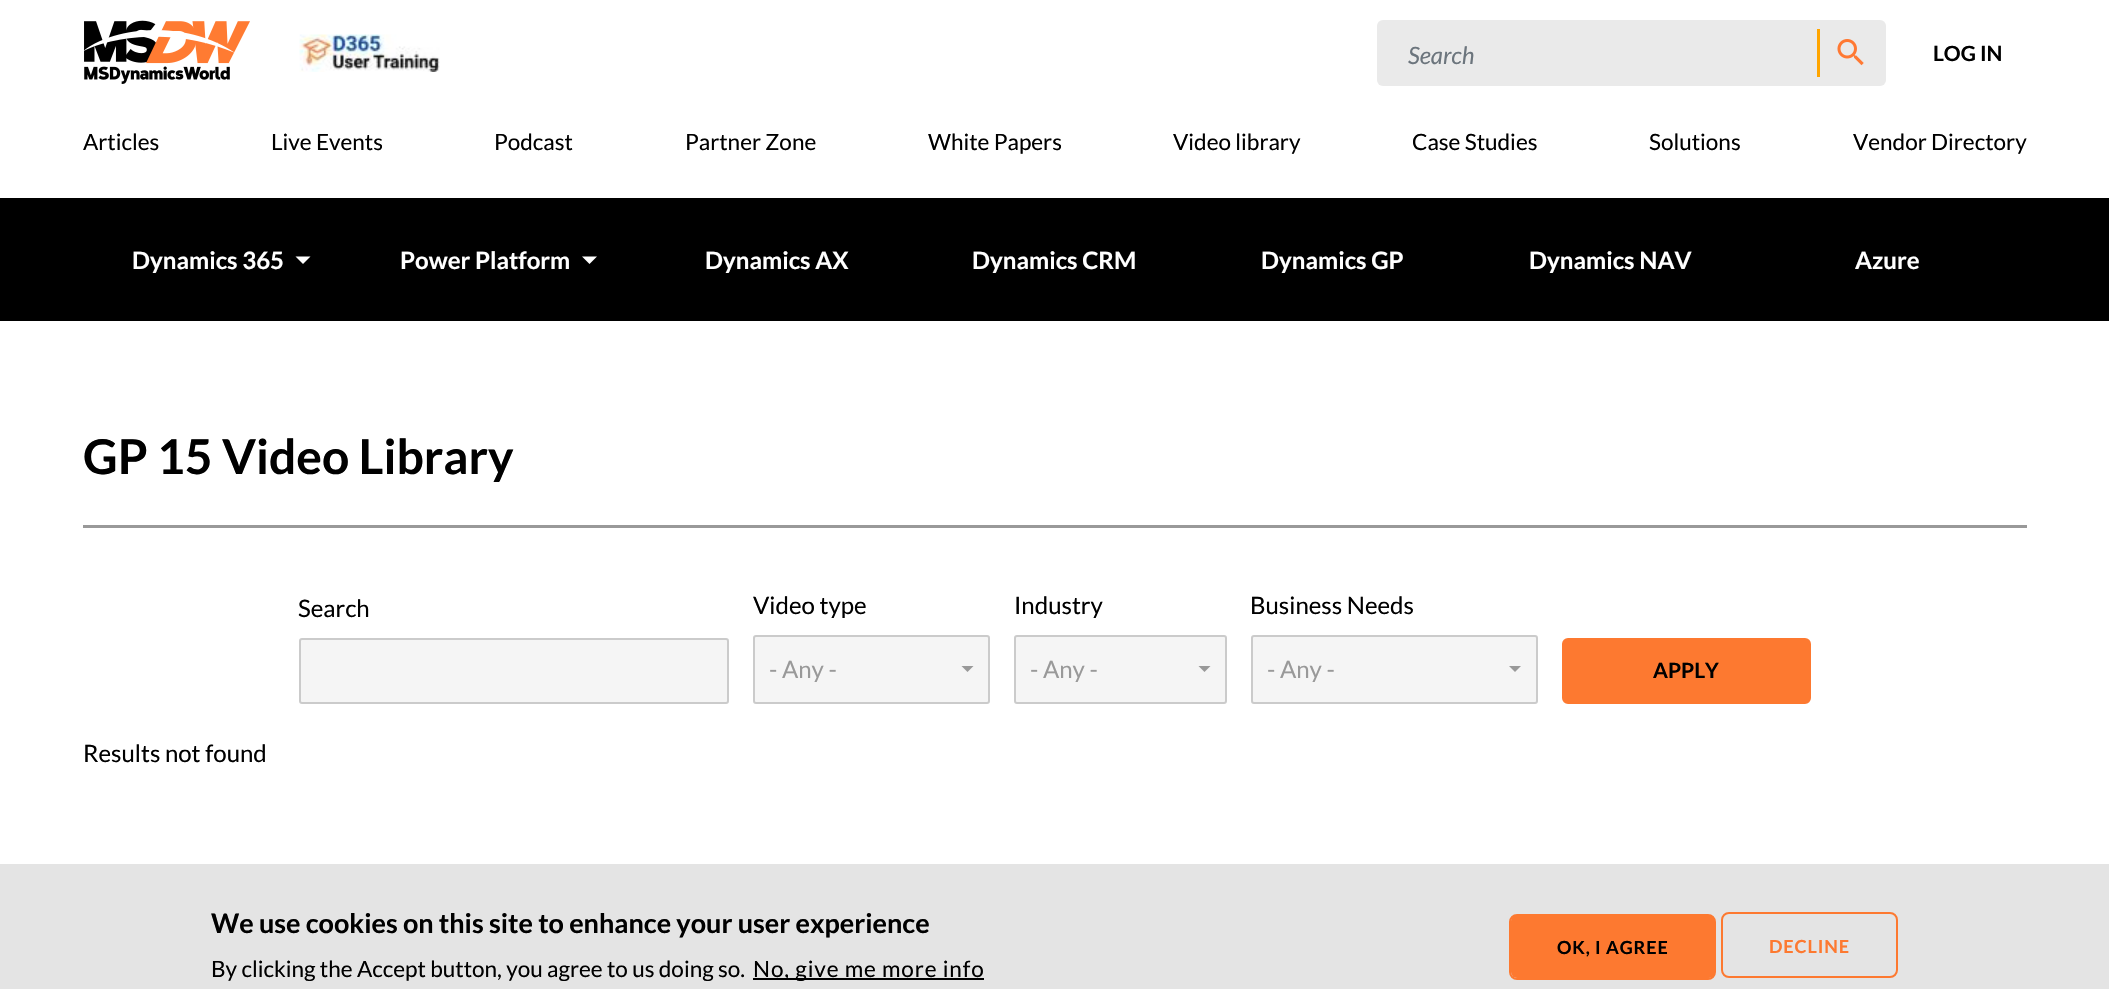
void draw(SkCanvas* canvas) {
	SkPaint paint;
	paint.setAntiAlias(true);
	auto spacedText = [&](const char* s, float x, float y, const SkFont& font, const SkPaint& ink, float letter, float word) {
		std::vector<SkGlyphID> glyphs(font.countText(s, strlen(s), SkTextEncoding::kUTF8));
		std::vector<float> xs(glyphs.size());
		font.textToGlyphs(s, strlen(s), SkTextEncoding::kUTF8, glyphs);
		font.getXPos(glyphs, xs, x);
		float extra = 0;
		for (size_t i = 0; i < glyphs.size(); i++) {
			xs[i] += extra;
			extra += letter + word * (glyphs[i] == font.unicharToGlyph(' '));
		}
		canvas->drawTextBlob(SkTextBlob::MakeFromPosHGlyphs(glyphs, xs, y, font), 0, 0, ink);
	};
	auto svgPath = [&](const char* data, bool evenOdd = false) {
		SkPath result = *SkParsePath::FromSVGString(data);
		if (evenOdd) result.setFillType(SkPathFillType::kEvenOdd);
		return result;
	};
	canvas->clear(0xffffffff);
	canvas->drawImageRect(SkImages::DeferredFromEncodedData(SkData::MakeFromFileName("img1.png")), SkRect::MakeXYWH(84, 20, 166, 64), SkSamplingOptions());
	canvas->drawImageRect(SkImages::DeferredFromEncodedData(SkData::MakeFromFileName("img2.png")), SkRect::MakeXYWH(299, 34, 141, 38), SkSamplingOptions());
	paint.setColor(0xffeaeaea);
	canvas->drawRoundRect(SkRect::MakeXYWH(1377, 20, 509, 66), 6, 6, paint);
	SkFont f1(fontMgr->matchFamilyStyle("Lato", SkFontStyle::Italic()), 24);
	f1.setSubpixel(true);
	paint.setColor(0xff6c757d);
	canvas->drawString("Search", 1408, 64, f1, paint);
	paint.setColor(0xffffa500);
	canvas->drawRect(SkRect::MakeXYWH(1817, 29, 3, 48), paint);
	canvas->drawImageRect(SkImages::DeferredFromEncodedData(SkData::MakeFromFileName("img3.png")), SkRect::MakeXYWH(1837, 39, 27, 27), SkSamplingOptions());
	SkFont f2(fontMgr->matchFamilyStyle("Lato", SkFontStyle::Bold()), 21);
	f2.setSubpixel(true);
	paint.setColor(0xff000000);
	canvas->drawString("LOG IN", 1933, 61, f2, paint);
	SkFont f3(fontMgr->matchFamilyStyle("Lato", SkFontStyle::Normal()), 22.5);
	f3.setSubpixel(true);
	canvas->drawString("Articles", 83, 150, f3, paint);
	canvas->drawString("Live Events", 271, 150, f3, paint);
	canvas->drawString("Podcast", 494, 150, f3, paint);
	canvas->drawString("Partner Zone", 685, 150, f3, paint);
	canvas->drawString("White Papers", 928, 150, f3, paint);
	canvas->drawString("Video library", 1173, 150, f3, paint);
	canvas->drawString("Case Studies", 1412, 150, f3, paint);
	canvas->drawString("Solutions", 1649, 150, f3, paint);
	canvas->drawString("Vendor Directory", 1853, 150, f3, paint);
	canvas->drawRect(SkRect::MakeXYWH(0, 198, 2109, 123), paint);
	SkFont f4(fontMgr->matchFamilyStyle("Lato", SkFontStyle::Bold()), 24);
	f4.setSubpixel(true);
	paint.setColor(0xffffffff);
	canvas->drawString("Dynamics 365", 132, 269, f4, paint);
	canvas->drawPath(svgPath("M295.5 256.5H310.5L303 264Z"), paint);
	canvas->drawString("Power Platform", 400, 269, f4, paint);
	canvas->drawPath(svgPath("M582 256.5H597L589.5 264Z"), paint);
	canvas->drawString("Dynamics AX", 705, 269, f4, paint);
	canvas->drawString("Dynamics CRM", 972, 269, f4, paint);
	canvas->drawString("Dynamics GP", 1261, 269, f4, paint);
	canvas->drawString("Dynamics NAV", 1529, 269, f4, paint);
	canvas->drawString("Azure", 1855, 269, f4, paint);
	SkFont f5(fontMgr->matchFamilyStyle("Lato", SkFontStyle::Bold()), 48);
	f5.setSubpixel(true);
	paint.setColor(0xff000000);
	canvas->drawString("GP 15 Video Library", 83, 474, f5, paint);
	paint.setColor(0xff999999);
	canvas->drawRect(SkRect::MakeXYWH(83, 525, 1944, 3), paint);
	SkFont f6(fontMgr->matchFamilyStyle("Lato", SkFontStyle::Normal()), 24);
	f6.setSubpixel(true);
	paint.setColor(0xff000000);
	canvas->drawString("Search", 298, 617, f6, paint);
	paint.setColor(0xfff5f5f5);
	canvas->drawRect(SkRect::MakeXYWH(301, 640, 426, 62), paint);
	paint.setStroke(true);
	paint.setStrokeWidth(2);
	paint.setColor(0xffcbcbcb);
	canvas->drawRoundRect(SkRect::MakeXYWH(300, 639, 428, 64), 2, 2, paint);
	paint.setStroke(false);
	paint.setColor(0xff000000);
	canvas->drawString("Video type", 753, 614, f6, paint);
	paint.setColor(0xfff5f5f5);
	canvas->drawRoundRect(SkRect::MakeXYWH(754, 636, 235, 67), 2, 2, paint);
	paint.setStroke(true);
	paint.setColor(0xffcbcbcb);
	canvas->drawRoundRect(SkRect::MakeXYWH(754, 636, 235, 67), 2, 2, paint);
	paint.setStroke(false);
	paint.setColor(0xff999999);
	canvas->drawString("- Any -", 769, 678, f6, paint);
	canvas->drawPath(svgPath("M961.5 666H973.5L967.5 672Z"), paint);
	paint.setColor(0xff000000);
	canvas->drawString("Industry", 1014, 614, f6, paint);
	paint.setColor(0xfff5f5f5);
	canvas->drawRoundRect(SkRect::MakeXYWH(1015, 636, 211, 67), 2, 2, paint);
	paint.setStroke(true);
	paint.setColor(0xffcbcbcb);
	canvas->drawRoundRect(SkRect::MakeXYWH(1015, 636, 211, 67), 2, 2, paint);
	paint.setStroke(false);
	paint.setColor(0xff999999);
	canvas->drawString("- Any -", 1030, 678, f6, paint);
	canvas->drawPath(svgPath("M1198.5 666H1210.5L1204.5 672Z"), paint);
	paint.setColor(0xff000000);
	canvas->drawString("Business Needs", 1250, 614, f6, paint);
	paint.setColor(0xfff5f5f5);
	canvas->drawRoundRect(SkRect::MakeXYWH(1252, 636, 285, 67), 2, 2, paint);
	paint.setStroke(true);
	paint.setColor(0xffcbcbcb);
	canvas->drawRoundRect(SkRect::MakeXYWH(1252, 636, 285, 67), 2, 2, paint);
	paint.setStroke(false);
	paint.setColor(0xff999999);
	canvas->drawString("- Any -", 1267, 678, f6, paint);
	canvas->drawPath(svgPath("M1509 666H1521L1515 672Z"), paint);
	paint.setColor(0xfffd7930);
	canvas->drawRoundRect(SkRect::MakeXYWH(1563, 639, 247, 64), 5, 5, paint);
	paint.setStroke(true);
	canvas->drawRoundRect(SkRect::MakeXYWH(1563, 639, 247, 64), 5, 5, paint);
	paint.setStroke(false);
	paint.setColor(0xff000000);
	canvas->drawString("APPLY", 1653, 678, f2, paint);
	canvas->drawString("Results not found", 83, 762, f6, paint);
	paint.setColor(0xffe4e4e4);
	canvas->drawRect(SkRect::MakeXYWH(0, 864, 2109, 125), paint);
	SkFont f7(fontMgr->matchFamilyStyle("Lato", SkFontStyle::Bold()), 27);
	f7.setSubpixel(true);
	paint.setColor(0xff000000);
	canvas->drawString("We use cookies on this site to enhance your user experience", 211, 933, f7, paint);
	canvas->drawString("By clicking the Accept button, you agree to us doing so.", 211, 977, f3, paint);
	canvas->drawRect(SkRect::MakeXYWH(753, 978, 231, 2), paint);
	spacedText("No, give me more info", 753, 977, f3, paint, 0.9, 0);
	paint.setColor(0xfffd7930);
	canvas->drawRoundRect(SkRect::MakeXYWH(1511, 915, 204, 63), 6, 6, paint);
	paint.setStroke(true);
	canvas->drawRoundRect(SkRect::MakeXYWH(1510, 915, 205, 64), 7, 7, paint);
	SkFont f8(fontMgr->matchFamilyStyle("Lato", SkFontStyle::Bold()), 18);
	f8.setSubpixel(true);
	paint.setStroke(false);
	paint.setColor(0xff000000);
	spacedText("OK, I AGREE", 1557, 954, f8, paint, 0.9, 0);
	paint.setStroke(true);
	paint.setColor(0xfffd7930);
	canvas->drawRoundRect(SkRect::MakeXYWH(1722, 913, 175, 64), 7, 7, paint);
	paint.setStroke(false);
	spacedText("DECLINE", 1769, 953, f8, paint, 0.9, 0);
}
